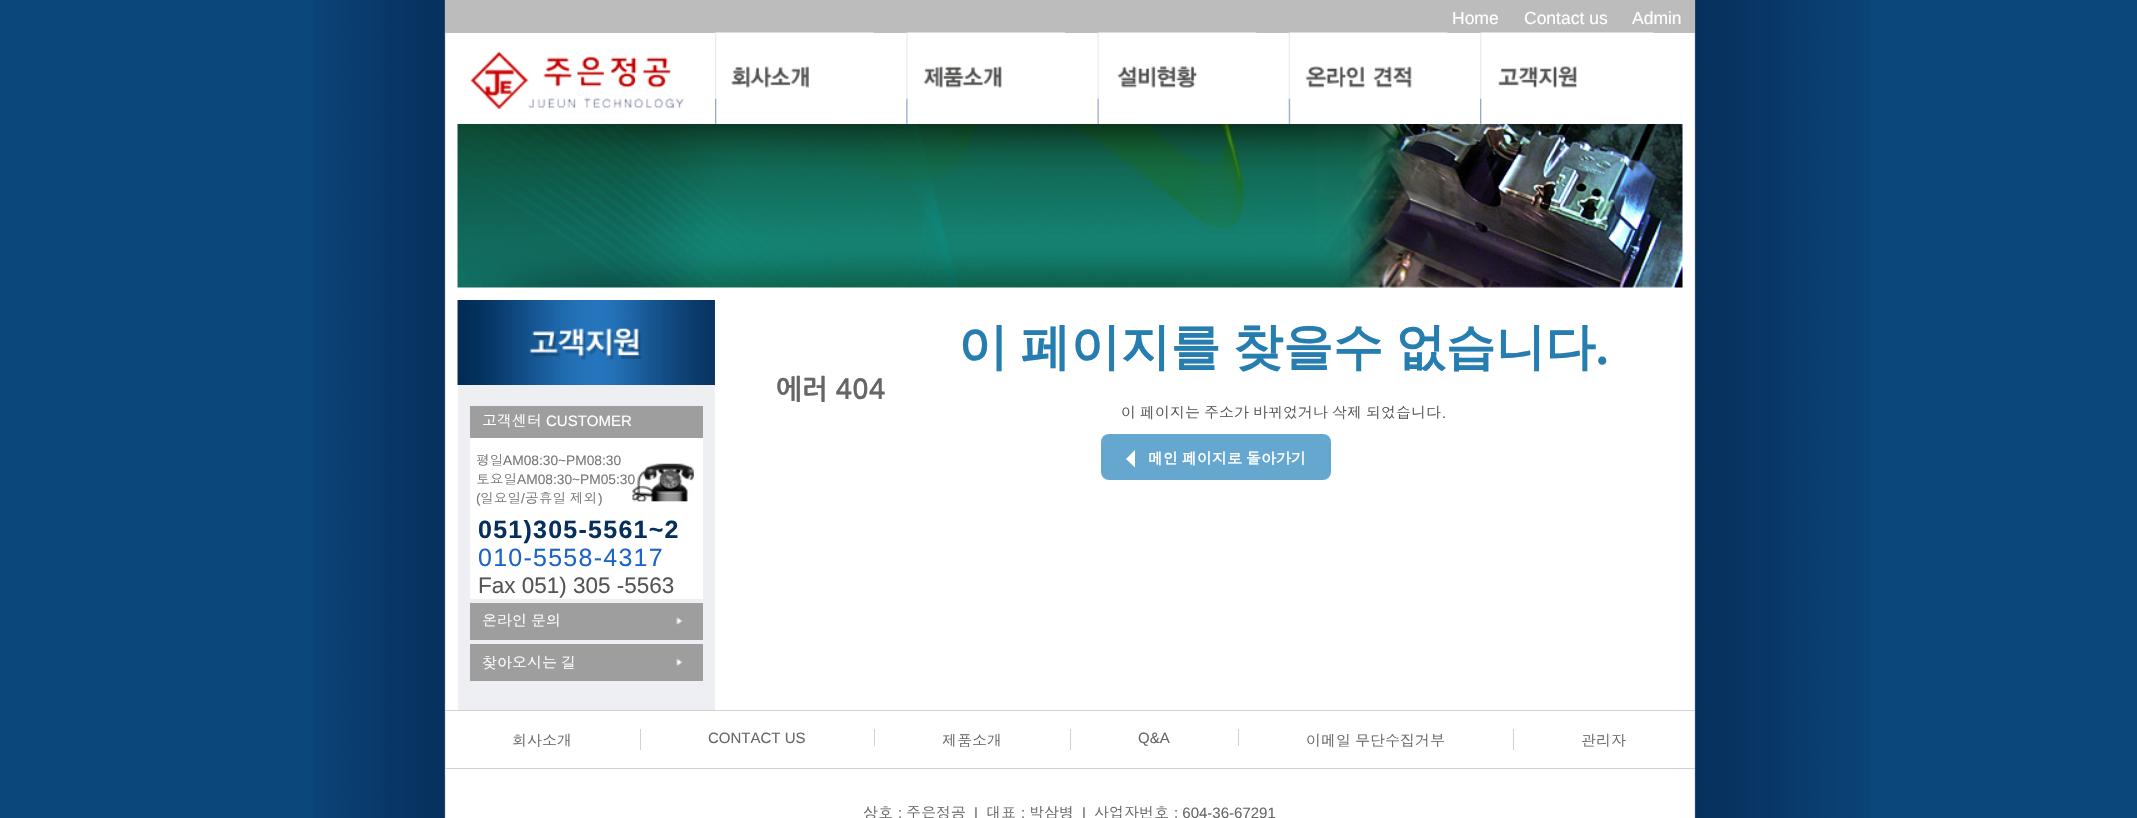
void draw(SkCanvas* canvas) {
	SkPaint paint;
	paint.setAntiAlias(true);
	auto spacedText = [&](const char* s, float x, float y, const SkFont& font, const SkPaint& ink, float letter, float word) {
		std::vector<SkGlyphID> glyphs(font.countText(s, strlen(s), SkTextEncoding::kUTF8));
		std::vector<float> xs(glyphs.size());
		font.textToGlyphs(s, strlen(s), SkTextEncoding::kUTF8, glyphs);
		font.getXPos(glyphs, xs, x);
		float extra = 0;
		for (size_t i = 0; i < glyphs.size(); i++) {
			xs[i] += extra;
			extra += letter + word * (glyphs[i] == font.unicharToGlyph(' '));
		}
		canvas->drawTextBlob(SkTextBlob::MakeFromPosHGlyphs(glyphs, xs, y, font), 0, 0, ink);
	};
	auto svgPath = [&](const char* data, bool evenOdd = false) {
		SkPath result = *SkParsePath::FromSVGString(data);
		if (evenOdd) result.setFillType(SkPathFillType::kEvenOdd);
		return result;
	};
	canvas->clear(0xff0b477b);
	canvas->drawImageRect(SkImages::DeferredFromEncodedData(SkData::MakeFromFileName("img1.png")), SkRect::MakeXYWH(313, 0, 1557, 818), SkSamplingOptions());
	paint.setColor(0xffbcbcbc);
	canvas->drawRect(SkRect::MakeXYWH(445, 0, 1250, 33), paint);
	SkFont f1(fontMgr->matchFamilyStyle("Liberation Sans", SkFontStyle::Normal()), 17.5);
	f1.setSubpixel(true);
	paint.setColor(0xffffffff);
	canvas->drawString("Home", 1452, 24, f1, paint);
	canvas->drawString("Contact us", 1524, 24, f1, paint);
	canvas->drawString("Admin", 1632, 24, f1, paint);
	canvas->drawImageRect(SkImages::DeferredFromEncodedData(SkData::MakeFromFileName("img8.png")), SkRect::MakeXYWH(457, 123, 1226, 165), SkSamplingOptions());
	paint.setColor(0xe6ffffff);
	canvas->drawRect(SkRect::MakeXYWH(458, 123, 1225, 1), paint);
	canvas->drawImageRect(SkImages::DeferredFromEncodedData(SkData::MakeFromFileName("img2.png")), SkRect::MakeXYWH(715, 32, 159, 92), SkSamplingOptions());
	canvas->drawImageRect(SkImages::DeferredFromEncodedData(SkData::MakeFromFileName("img3.png")), SkRect::MakeXYWH(906, 32, 159, 92), SkSamplingOptions());
	canvas->drawImageRect(SkImages::DeferredFromEncodedData(SkData::MakeFromFileName("img4.png")), SkRect::MakeXYWH(1097, 32, 160, 92), SkSamplingOptions());
	canvas->drawImageRect(SkImages::DeferredFromEncodedData(SkData::MakeFromFileName("img5.png")), SkRect::MakeXYWH(1288, 32, 160, 92), SkSamplingOptions());
	canvas->drawImageRect(SkImages::DeferredFromEncodedData(SkData::MakeFromFileName("img6.png")), SkRect::MakeXYWH(1480, 32, 174, 92), SkSamplingOptions());
	canvas->drawImageRect(SkImages::DeferredFromEncodedData(SkData::MakeFromFileName("img7.png")), SkRect::MakeXYWH(470, 51, 214, 58), SkSamplingOptions());
	SkFont f2(fontMgr->matchFamilyStyle("WenQuanYi Zen Hei", SkFontStyle::Bold()), 50);
	f2.setSubpixel(true);
	paint.setColor(0xff267daf);
	spacedText("이 페이지를 찾을수 없습니다", 958, 364, f2, paint, 0, -2.5);
	SkFont f3(fontMgr->matchFamilyStyle("Liberation Serif", SkFontStyle::Bold()), 50);
	f3.setSubpixel(true);
	canvas->drawString(".", 1596, 364, f3, paint);
	SkFont f4(fontMgr->matchFamilyStyle("NanumGothic", SkFontStyle::Bold()), 27.5);
	f4.setSubpixel(true);
	paint.setColor(0xff666666);
	canvas->drawString("에러 404", 776, 399, f4, paint);
	SkFont f5(fontMgr->matchFamilyStyle("Dotum", SkFontStyle::Normal()), 15);
	f5.setSubpixel(true);
	paint.setColor(0xff555555);
	spacedText("이 페이지는 주소가 바뀌었거나 삭제 되었습니다", 1121, 418, f5, paint, 0, -1);
	SkFont f6(fontMgr->matchFamilyStyle("Liberation Sans", SkFontStyle::Normal()), 15);
	f6.setSubpixel(true);
	canvas->drawString(".", 1442, 418, f6, paint);
	paint.setColor(0xff65a7ce);
	canvas->drawRoundRect(SkRect::MakeXYWH(1101, 434, 230, 46), 8, 8, paint);
	paint.setColor(0xffffffff);
	canvas->drawPath(svgPath("M1135 450V467.5L1126 459Z"), paint);
	SkFont f7(fontMgr->matchFamilyStyle("Dotum", SkFontStyle::Bold()), 15);
	f7.setSubpixel(true);
	spacedText("메인 페이지로 돌아가기", 1148, 464, f7, paint, 0, -1);
	paint.setColor(0xffeeeff3);
	canvas->drawRect(SkRect::MakeXYWH(458, 385, 257, 325), paint);
	canvas->drawImageRect(SkImages::DeferredFromEncodedData(SkData::MakeFromFileName("img9.png")), SkRect::MakeXYWH(457, 300, 258, 85), SkSamplingOptions());
	paint.setColor(0xff9f9e9e);
	canvas->drawRect(SkRect::MakeXYWH(470, 406, 233, 32), paint);
	paint.setColor(0xffffffff);
	canvas->drawString("고객센터", 482, 426, f5, paint);
	canvas->drawString("CUSTOMER", 546, 426, f6, paint);
	canvas->drawRect(SkRect::MakeXYWH(470, 438, 233, 161), paint);
	canvas->drawImageRect(SkImages::DeferredFromEncodedData(SkData::MakeFromFileName("img10.png")), SkRect::MakeXYWH(632, 463, 62, 39), SkSamplingOptions());
	SkFont f8(fontMgr->matchFamilyStyle("Dotum", SkFontStyle::Normal()), 13.75);
	f8.setSubpixel(true);
	paint.setColor(0xff787878);
	canvas->drawString("평일", 476, 465, f8, paint);
	SkFont f9(fontMgr->matchFamilyStyle("Liberation Sans", SkFontStyle::Normal()), 13.75);
	f9.setSubpixel(true);
	canvas->drawString("AM08:30~PM08:30", 503, 465, f9, paint);
	canvas->drawString("토요일", 476, 484, f8, paint);
	canvas->drawString("AM08:30~PM05:30", 517, 484, f9, paint);
	canvas->drawString("(", 476, 503, f9, paint);
	canvas->drawString("일요일", 480, 503, f8, paint);
	canvas->drawString("/", 521, 503, f9, paint);
	spacedText("공휴일 제외", 525, 503, f8, paint, 0, -1);
	canvas->drawString(")", 598, 503, f9, paint);
	SkFont f10(fontMgr->matchFamilyStyle("Liberation Sans", SkFontStyle::Bold()), 25);
	f10.setSubpixel(true);
	paint.setColor(0xff072f5c);
	spacedText("051)305-5561~2", 478, 538, f10, paint, 1.25, 0);
	SkFont f11(fontMgr->matchFamilyStyle("Liberation Sans", SkFontStyle::Normal()), 25);
	f11.setSubpixel(true);
	paint.setColor(0xff1c64c8);
	spacedText("010-5558-4317", 478, 566, f11, paint, 1.25, 0);
	SkFont f12(fontMgr->matchFamilyStyle("Liberation Sans", SkFontStyle::Normal()), 22.5);
	f12.setSubpixel(true);
	paint.setColor(0xff555555);
	canvas->drawString("Fax 051) 305 -5563", 478, 593, f12, paint);
	paint.setColor(0xff9f9e9e);
	canvas->drawRect(SkRect::MakeXYWH(470, 603, 233, 37), paint);
	canvas->drawImageRect(SkImages::DeferredFromEncodedData(SkData::MakeFromFileName("img11.png")), SkRect::MakeXYWH(676, 617, 7, 8), SkSamplingOptions());
	paint.setColor(0xffffffff);
	spacedText("온라인 문의", 482, 626, f5, paint, 0, -1);
	paint.setColor(0xff9f9e9e);
	canvas->drawRect(SkRect::MakeXYWH(470, 644, 233, 37), paint);
	canvas->drawImageRect(SkImages::DeferredFromEncodedData(SkData::MakeFromFileName("img12.png")), SkRect::MakeXYWH(676, 658, 7, 8), SkSamplingOptions());
	paint.setColor(0xffffffff);
	spacedText("찾아오시는 길", 482, 668, f5, paint, 0, -1);
	paint.setColor(0xffd1d1d1);
	canvas->drawRect(SkRect::MakeXYWH(445, 710, 1250, 1), paint);
	canvas->drawRect(SkRect::MakeXYWH(445, 768, 1250, 1), paint);
	canvas->drawRect(SkRect::MakeXYWH(640, 729, 1, 21), paint);
	paint.setColor(0xff666666);
	canvas->drawString("회사소개", 512, 746, f5, paint);
	paint.setColor(0xffd1d1d1);
	canvas->drawRect(SkRect::MakeXYWH(874, 729, 1, 17), paint);
	paint.setColor(0xff666666);
	canvas->drawString("CONTACT US", 708, 743, f6, paint);
	paint.setColor(0xffd1d1d1);
	canvas->drawRect(SkRect::MakeXYWH(1070, 729, 1, 21), paint);
	paint.setColor(0xff666666);
	canvas->drawString("제품소개", 942, 746, f5, paint);
	paint.setColor(0xffd1d1d1);
	canvas->drawRect(SkRect::MakeXYWH(1238, 729, 1, 17), paint);
	paint.setColor(0xff666666);
	canvas->drawString("Q&A", 1138, 743, f6, paint);
	paint.setColor(0xffd1d1d1);
	canvas->drawRect(SkRect::MakeXYWH(1513, 729, 1, 21), paint);
	paint.setColor(0xff666666);
	spacedText("이메일 무단수집거부", 1306, 746, f5, paint, 0, -1);
	canvas->drawString("관리자", 1581, 746, f5, paint);
	canvas->drawString("상호", 863, 818, f5, paint);
	canvas->drawString(":", 898, 818, f6, paint);
	canvas->drawString("주은정공", 906, 818, f5, paint);
	canvas->drawString("|", 974, 818, f6, paint);
	canvas->drawString("대표", 986, 818, f5, paint);
	canvas->drawString(":", 1021, 818, f6, paint);
	canvas->drawString("박삼병", 1029, 818, f5, paint);
	canvas->drawString("|", 1082, 818, f6, paint);
	canvas->drawString("사업자번호", 1094, 818, f5, paint);
	canvas->drawString(": 604-36-67291", 1174, 818, f6, paint);
}
